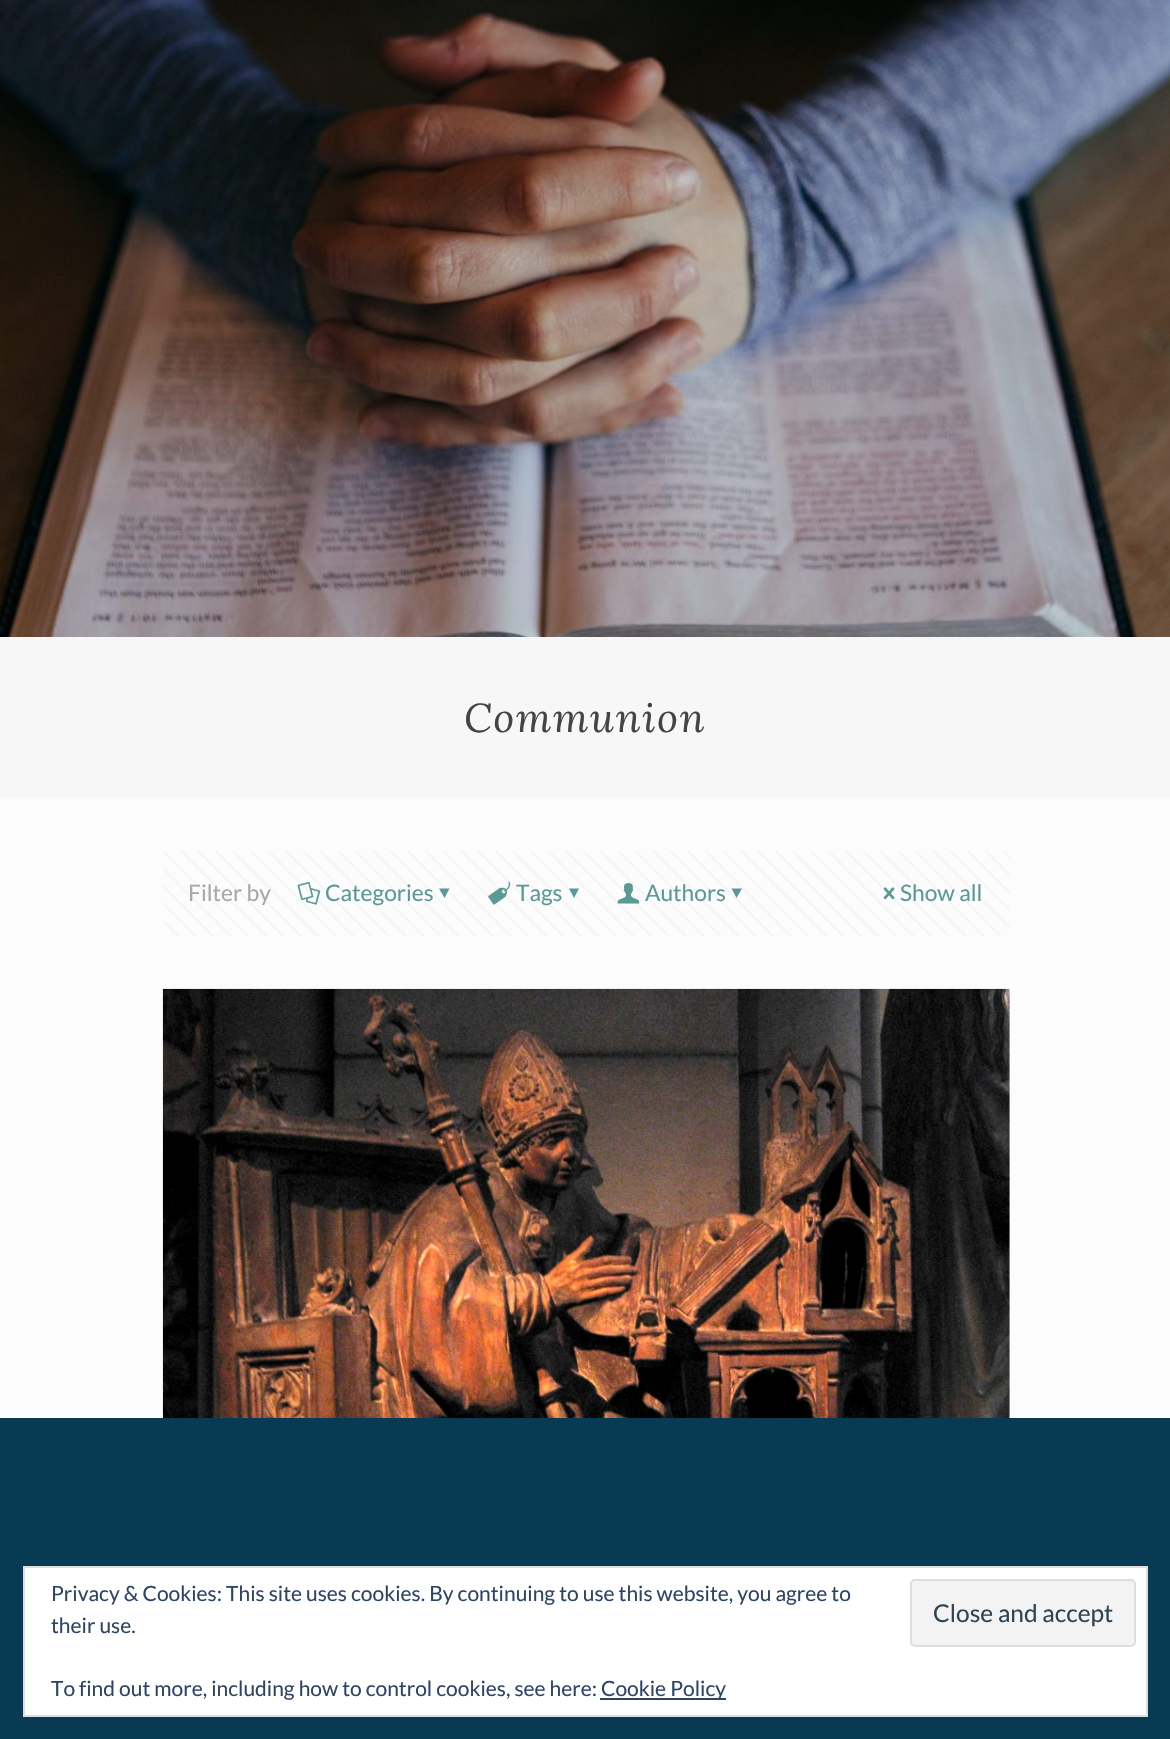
void draw(SkCanvas* canvas) {
	SkPaint paint;
	paint.setAntiAlias(true);
	auto spacedText = [&](const char* s, float x, float y, const SkFont& font, const SkPaint& ink, float letter, float word) {
		std::vector<SkGlyphID> glyphs(font.countText(s, strlen(s), SkTextEncoding::kUTF8));
		std::vector<float> xs(glyphs.size());
		font.textToGlyphs(s, strlen(s), SkTextEncoding::kUTF8, glyphs);
		font.getXPos(glyphs, xs, x);
		float extra = 0;
		for (size_t i = 0; i < glyphs.size(); i++) {
			xs[i] += extra;
			extra += letter + word * (glyphs[i] == font.unicharToGlyph(' '));
		}
		canvas->drawTextBlob(SkTextBlob::MakeFromPosHGlyphs(glyphs, xs, y, font), 0, 0, ink);
	};
	auto svgPath = [&](const char* data, bool evenOdd = false) {
		SkPath result = *SkParsePath::FromSVGString(data);
		if (evenOdd) result.setFillType(SkPathFillType::kEvenOdd);
		return result;
	};
	canvas->clear(0xfffcfcfc);
	canvas->drawImageRect(SkImages::DeferredFromEncodedData(SkData::MakeFromFileName("img1.png")), SkRect::MakeXYWH(0, 0, 1170, 637), SkSamplingOptions());
	paint.setColor(0xfff7f7f7);
	canvas->drawRect(SkRect::MakeXYWH(0, 637, 1170, 161), paint);
	SkFont f1(fontMgr->matchFamilyStyle("Lora", SkFontStyle::Italic()), 40.25);
	f1.setSubpixel(true);
	paint.setColor(0xff444444);
	spacedText("Communion", 464, 732, f1, paint, 1.75, 0);
	canvas->drawImageRect(SkImages::DeferredFromEncodedData(SkData::MakeFromFileName("img2.png")), SkRect::MakeXYWH(163, 851, 847, 85), SkSamplingOptions());
	SkFont f2(fontMgr->matchFamilyStyle("Lato", SkFontStyle::Normal()), 22.75);
	f2.setSubpixel(true);
	paint.setColor(0xffa8a8a8);
	canvas->drawString("Filter by", 188, 901, f2, paint);
	canvas->drawImageRect(SkImages::DeferredFromEncodedData(SkData::MakeFromFileName("img3.png")), SkRect::MakeXYWH(297, 881, 24, 24), SkSamplingOptions());
	paint.setColor(0xff5b9996);
	canvas->drawString("Categories", 325, 901, f2, paint);
	canvas->drawPath(svgPath("M449.5 888.5L444.5 898L439 888.5Z"), paint);
	canvas->drawImageRect(SkImages::DeferredFromEncodedData(SkData::MakeFromFileName("img4.png")), SkRect::MakeXYWH(488, 881, 23, 24), SkSamplingOptions());
	canvas->drawString("Tags", 516, 901, f2, paint);
	canvas->drawPath(svgPath("M579 888.5L574 898L569 888.5Z"), paint);
	canvas->drawImageRect(SkImages::DeferredFromEncodedData(SkData::MakeFromFileName("img5.png")), SkRect::MakeXYWH(617, 883, 23, 21), SkSamplingOptions());
	canvas->drawString("Authors", 645, 901, f2, paint);
	canvas->drawPath(svgPath("M742 888.5L736.5 898L731.5 888.5Z"), paint);
	canvas->drawImageRect(SkImages::DeferredFromEncodedData(SkData::MakeFromFileName("img6.png")), SkRect::MakeXYWH(883, 887, 12, 13), SkSamplingOptions());
	canvas->drawString("Show all", 900, 901, f2, paint);
	canvas->drawImageRect(SkImages::DeferredFromEncodedData(SkData::MakeFromFileName("img7.png")), SkRect::MakeXYWH(162, 988, 848, 430), SkSamplingOptions());
	paint.setColor(0xff083a53);
	canvas->drawRect(SkRect::MakeXYWH(0, 1418, 1170, 321), paint);
	paint.setColor(0xffffffff);
	canvas->drawRect(SkRect::MakeXYWH(24, 1567, 1123, 149), paint);
	paint.setStroke(true);
	paint.setStrokeWidth(2);
	paint.setColor(0xffdedede);
	canvas->drawRect(SkRect::MakeXYWH(24, 1567, 1123, 149), paint);
	SkFont f3(fontMgr->matchFamilyStyle("Lato", SkFontStyle::Normal()), 21);
	f3.setSubpixel(true);
	paint.setStroke(false);
	paint.setColor(0xff2e4467);
	canvas->drawString("Privacy & Cookies: This site uses cookies. By continuing to use this website, you agree to", 51, 1601, f3, paint);
	canvas->drawString("their use.", 51, 1633, f3, paint);
	paint.setColor(0xfff3f3f3);
	canvas->drawRoundRect(SkRect::MakeXYWH(911, 1580, 224, 66), 4, 4, paint);
	paint.setStroke(true);
	paint.setColor(0xffdedede);
	canvas->drawRoundRect(SkRect::MakeXYWH(911, 1580, 224, 66), 4, 4, paint);
	SkFont f4(fontMgr->matchFamilyStyle("Lato", SkFontStyle::Normal()), 24.5);
	f4.setSubpixel(true);
	paint.setStroke(false);
	paint.setColor(0xff2e4453);
	canvas->drawString("Close and accept", 933, 1622, f4, paint);
	paint.setColor(0xff2e4467);
	canvas->drawString("To find out more, including how to control cookies, see here:", 51, 1696, f3, paint);
	canvas->drawRect(SkRect::MakeXYWH(600, 1698, 126, 2), paint);
	canvas->drawString("Cookie Policy", 601, 1696, f3, paint);
}
